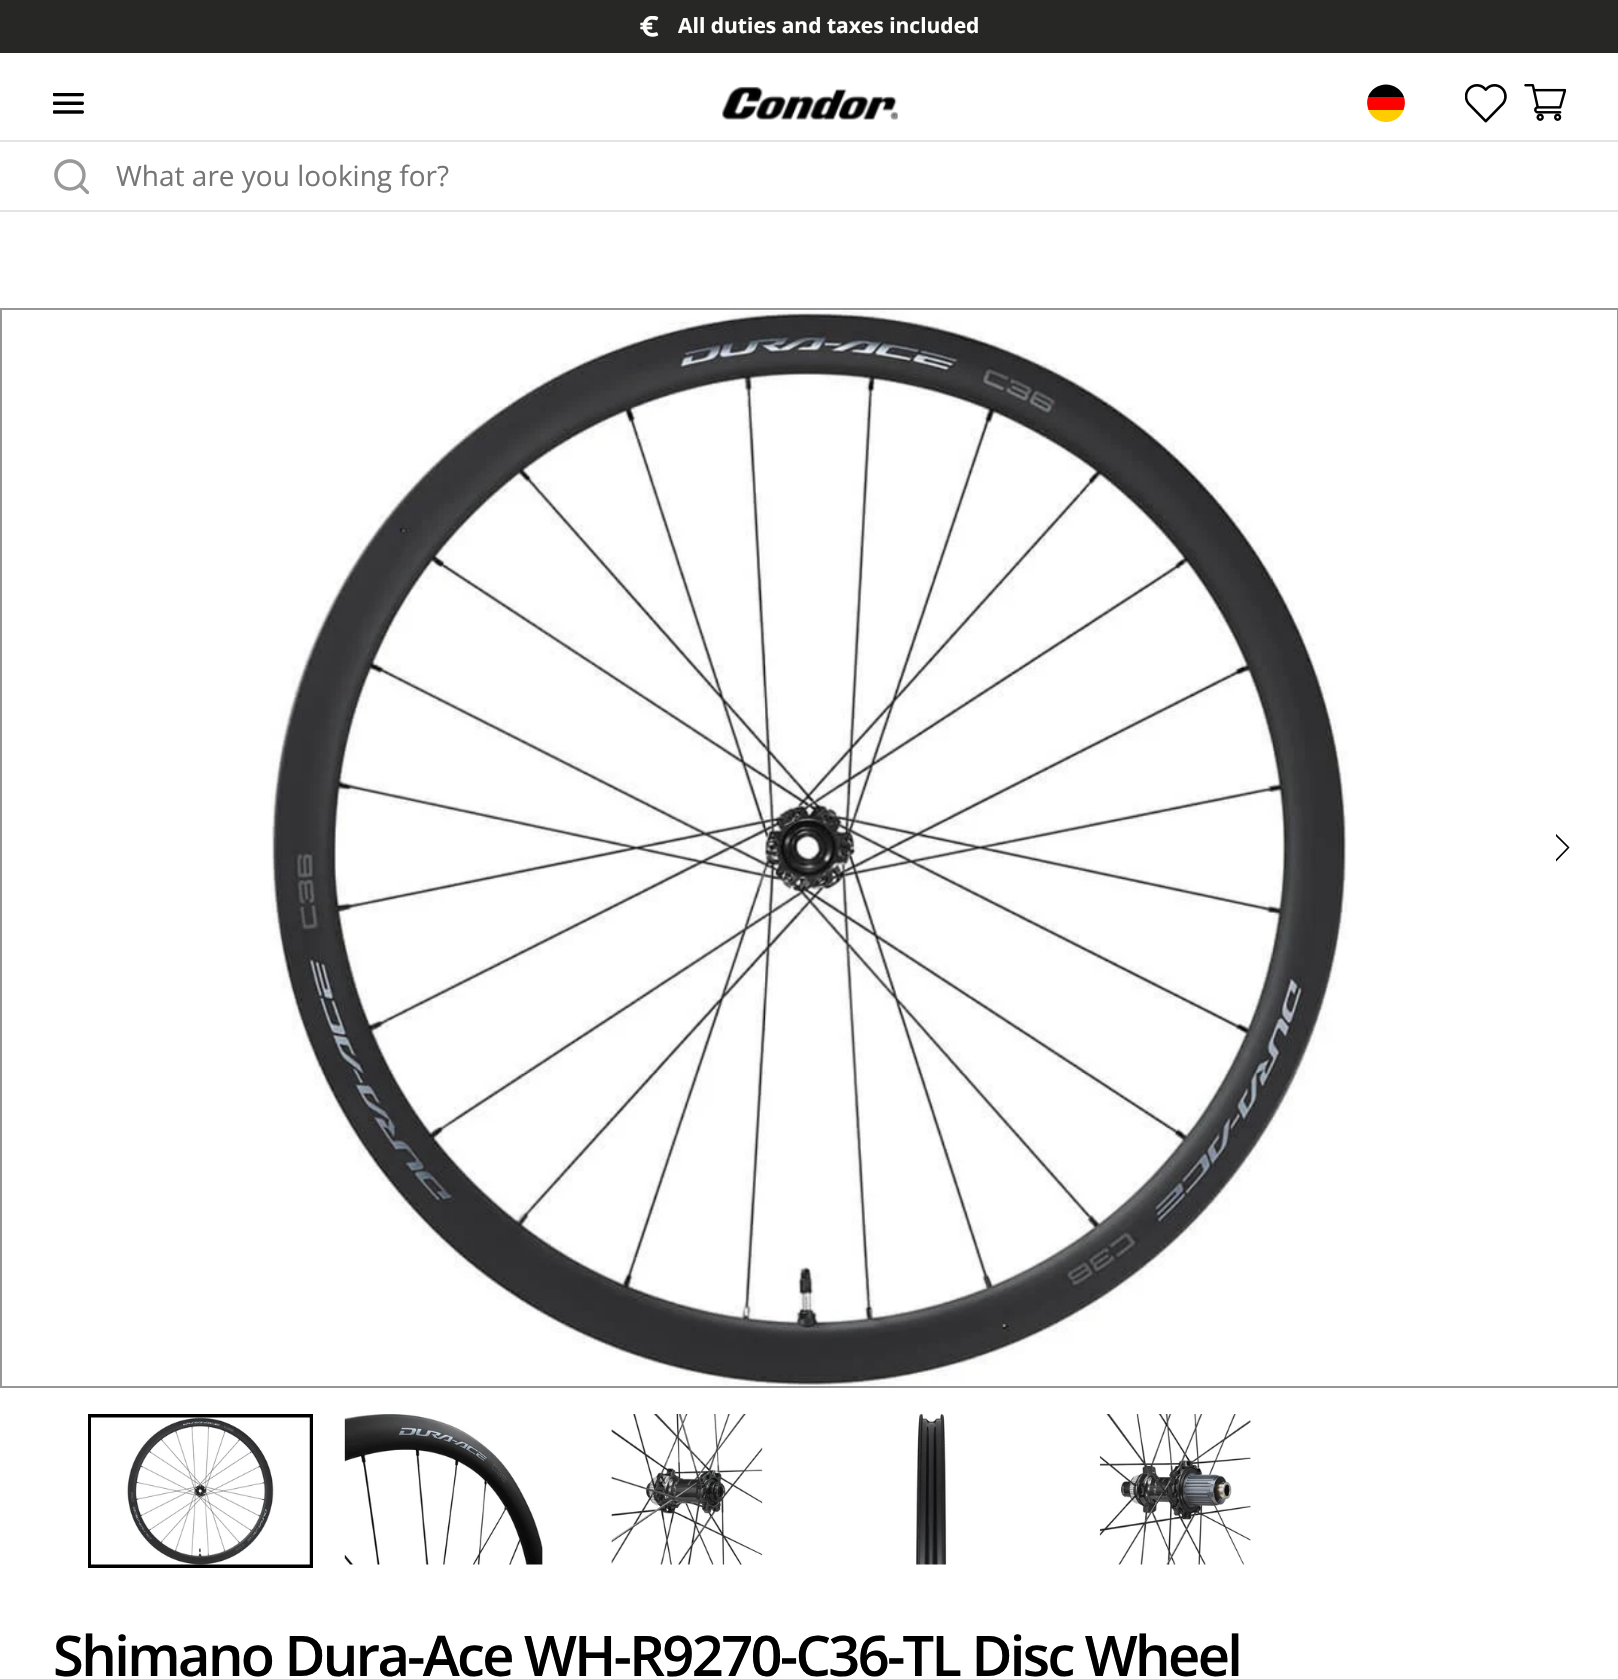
void draw(SkCanvas* canvas) {
	SkPaint paint;
	paint.setAntiAlias(true);
	auto spacedText = [&](const char* s, float x, float y, const SkFont& font, const SkPaint& ink, float letter, float word) {
		std::vector<SkGlyphID> glyphs(font.countText(s, strlen(s), SkTextEncoding::kUTF8));
		std::vector<float> xs(glyphs.size());
		font.textToGlyphs(s, strlen(s), SkTextEncoding::kUTF8, glyphs);
		font.getXPos(glyphs, xs, x);
		float extra = 0;
		for (size_t i = 0; i < glyphs.size(); i++) {
			xs[i] += extra;
			extra += letter + word * (glyphs[i] == font.unicharToGlyph(' '));
		}
		canvas->drawTextBlob(SkTextBlob::MakeFromPosHGlyphs(glyphs, xs, y, font), 0, 0, ink);
	};
	auto svgPath = [&](const char* data, bool evenOdd = false) {
		SkPath result = *SkParsePath::FromSVGString(data);
		if (evenOdd) result.setFillType(SkPathFillType::kEvenOdd);
		return result;
	};
	canvas->clear(0xffffffff);
	paint.setColor(0xff272726);
	canvas->drawRect(SkRect::MakeXYWH(0, 0, 1618, 53), paint);
	canvas->drawImageRect(SkImages::DeferredFromEncodedData(SkData::MakeFromFileName("img1.png")), SkRect::MakeXYWH(640, 16, 19, 21), SkSamplingOptions());
	SkFont f1(fontMgr->matchFamilyStyle("Open Sans", SkFontStyle::Bold()), 21);
	f1.setSubpixel(true);
	paint.setColor(0xffffffff);
	canvas->drawString("All duties and taxes included", 678, 33, f1, paint);
	canvas->drawImageRect(SkImages::DeferredFromEncodedData(SkData::MakeFromFileName("img2.png")), SkRect::MakeXYWH(53, 93, 31, 21), SkSamplingOptions());
	canvas->drawImageRect(SkImages::DeferredFromEncodedData(SkData::MakeFromFileName("img3.png")), SkRect::MakeXYWH(722, 86, 176, 34), SkSamplingOptions());
	paint.setColor(0xffffcc00);
	canvas->drawPath(svgPath("M1403.5 110C1397.5 126 1374.5 126 1368.5 110Z"), paint);
	paint.setColor(0xff000000);
	canvas->drawPath(svgPath("M1386 84.5C1394 84.5 1401.5 89.5 1404 97H1368C1370.5 89.5 1378 84.5 1386 84.5Z"), paint);
	paint.setColor(0xffff0000);
	canvas->drawPath(svgPath("M1368.5 110C1367 106 1366.5 101 1368 97H1404C1405.5 101 1405 106 1403.5 110Z"), paint);
	canvas->drawImageRect(SkImages::DeferredFromEncodedData(SkData::MakeFromFileName("img4.png")), SkRect::MakeXYWH(1465, 84, 42, 39), SkSamplingOptions());
	canvas->drawImageRect(SkImages::DeferredFromEncodedData(SkData::MakeFromFileName("img5.png")), SkRect::MakeXYWH(1524, 84, 42, 37), SkSamplingOptions());
	paint.setColor(0xffe4e4e4);
	canvas->drawRect(SkRect::MakeXYWH(0, 140, 1618, 2), paint);
	canvas->drawRect(SkRect::MakeXYWH(0, 210, 1618, 2), paint);
	canvas->drawImageRect(SkImages::DeferredFromEncodedData(SkData::MakeFromFileName("img6.png")), SkRect::MakeXYWH(54, 159, 35, 35), SkSamplingOptions());
	SkFont f2(fontMgr->matchFamilyStyle("Open Sans", SkFontStyle::Normal()), 28);
	f2.setSubpixel(true);
	paint.setColor(0xff767676);
	canvas->drawString("What are you looking for?", 116, 186, f2, paint);
	paint.setStroke(true);
	paint.setStrokeWidth(2);
	paint.setColor(0xff979797);
	canvas->drawRect(SkRect::MakeXYWH(1, 309, 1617, 1078), paint);
	canvas->drawImageRect(SkImages::DeferredFromEncodedData(SkData::MakeFromFileName("img7.png")), SkRect::MakeXYWH(271, 310, 1077, 1076), SkSamplingOptions());
	canvas->save();
	canvas->clipRect(SkRect::MakeXYWH(1556, 803, 16, 91));
	paint.setStrokeWidth(1.7);
	paint.setStrokeCap(SkPaint::kRound_Cap);
	paint.setStrokeJoin(SkPaint::kRound_Join);
	paint.setColor(0xff000000);
	canvas->drawPath(svgPath("M1568.5 847.5L1555.5 834.5M1555.5 861L1568.5 847.5"), paint);
	canvas->restore();
	paint.setStrokeWidth(4);
	paint.setStrokeCap(SkPaint::kButt_Cap);
	paint.setStrokeJoin(SkPaint::kMiter_Join);
	canvas->drawRect(SkRect::MakeXYWH(90, 1416, 221, 150), paint);
	canvas->drawImageRect(SkImages::DeferredFromEncodedData(SkData::MakeFromFileName("img8.png")), SkRect::MakeXYWH(91, 1417, 219, 148), SkSamplingOptions());
	canvas->drawImageRect(SkImages::DeferredFromEncodedData(SkData::MakeFromFileName("img9.png")), SkRect::MakeXYWH(344, 1414, 199, 151), SkSamplingOptions());
	canvas->drawImageRect(SkImages::DeferredFromEncodedData(SkData::MakeFromFileName("img10.png")), SkRect::MakeXYWH(610, 1414, 153, 151), SkSamplingOptions());
	canvas->drawImageRect(SkImages::DeferredFromEncodedData(SkData::MakeFromFileName("img11.png")), SkRect::MakeXYWH(915, 1414, 33, 151), SkSamplingOptions());
	canvas->drawImageRect(SkImages::DeferredFromEncodedData(SkData::MakeFromFileName("img12.png")), SkRect::MakeXYWH(1099, 1414, 152, 151), SkSamplingOptions());
	SkFont f3(fontMgr->matchFamilyStyle("Open Sans", SkFontStyle(600, SkFontStyle::kNormal_Width, SkFontStyle::kUpright_Slant)), 56);
	f3.setSubpixel(true);
	paint.setStroke(false);
	spacedText("Shimano Dura-Ace WH-R9270-C36-TL Disc Wheel", 53, 1676, f3, paint, -2.6, 0);
}
